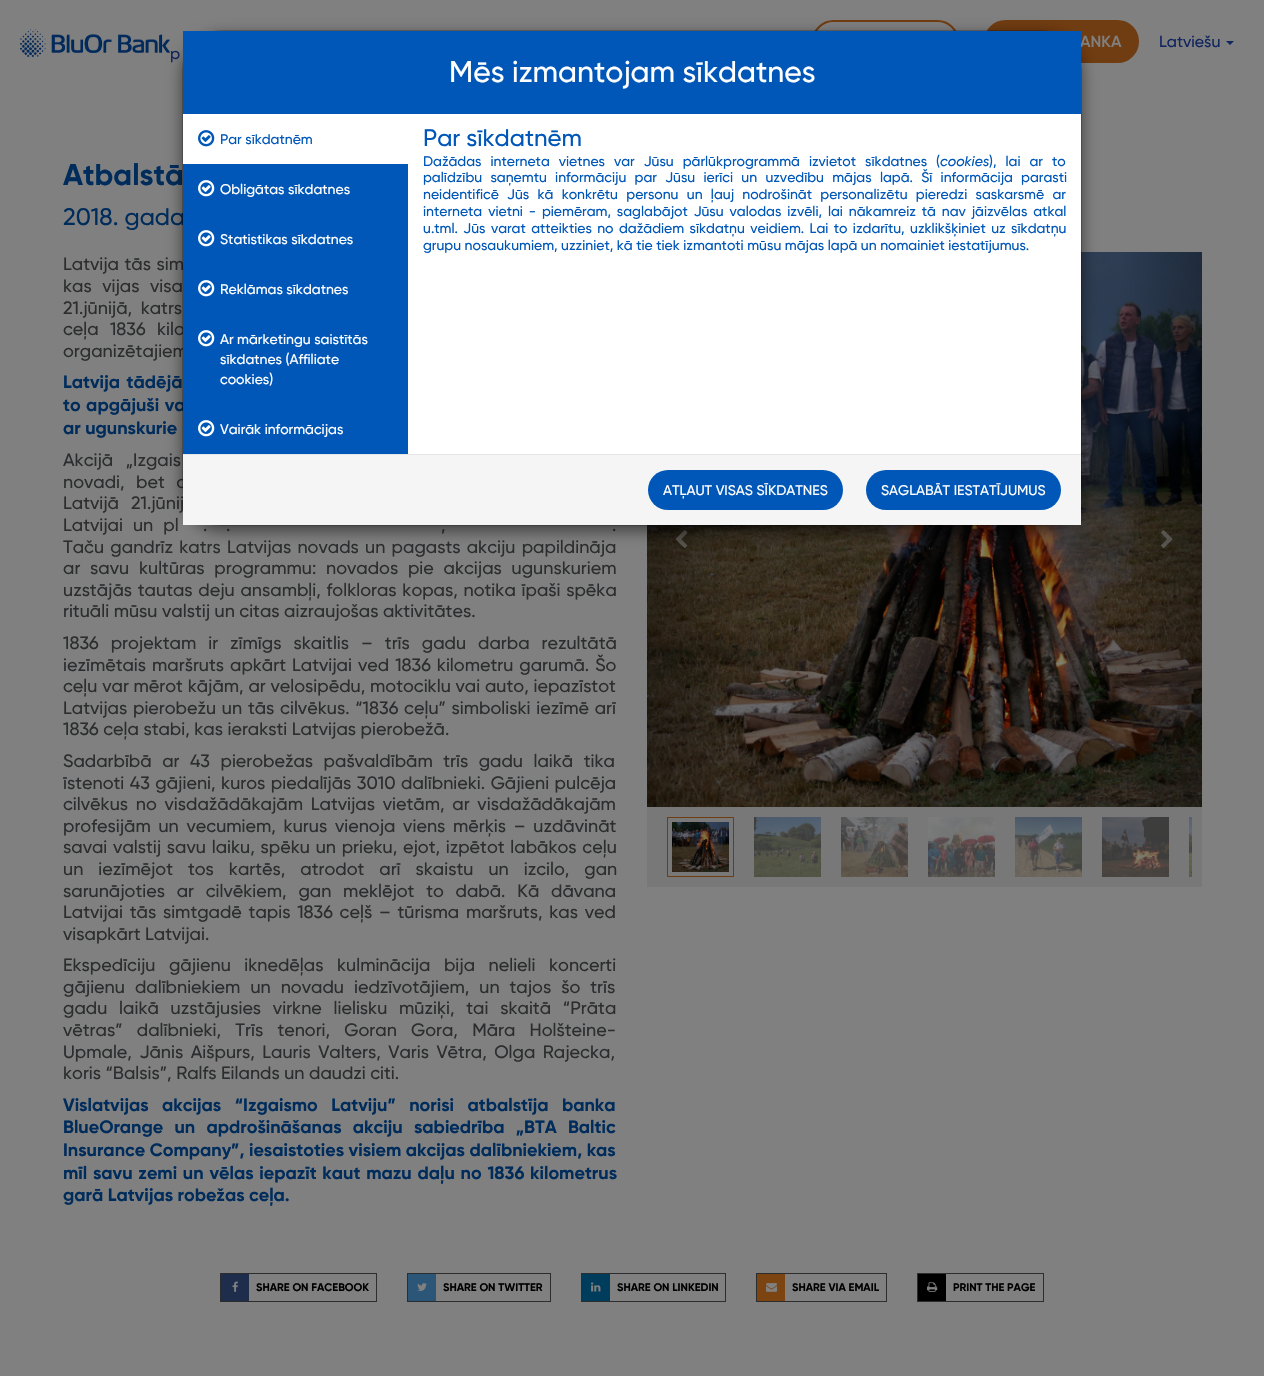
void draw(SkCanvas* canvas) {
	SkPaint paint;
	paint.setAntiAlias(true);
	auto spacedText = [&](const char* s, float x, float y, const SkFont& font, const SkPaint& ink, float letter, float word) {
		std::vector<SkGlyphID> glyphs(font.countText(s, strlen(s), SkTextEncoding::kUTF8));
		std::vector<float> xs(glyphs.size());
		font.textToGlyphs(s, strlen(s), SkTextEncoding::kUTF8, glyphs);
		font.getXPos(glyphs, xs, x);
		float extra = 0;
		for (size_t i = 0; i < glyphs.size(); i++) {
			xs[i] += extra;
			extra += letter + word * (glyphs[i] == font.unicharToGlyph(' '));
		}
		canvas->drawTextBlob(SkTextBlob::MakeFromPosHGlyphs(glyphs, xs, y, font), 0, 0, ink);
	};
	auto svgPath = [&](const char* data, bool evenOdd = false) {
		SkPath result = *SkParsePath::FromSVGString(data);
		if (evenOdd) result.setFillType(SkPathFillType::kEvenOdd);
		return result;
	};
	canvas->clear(0xff808080);
	canvas->drawImageRect(SkImages::DeferredFromEncodedData(SkData::MakeFromFileName("img1.png")), SkRect::MakeXYWH(20, 29, 150, 28), SkSamplingOptions());
	paint.setStroke(true);
	paint.setStrokeWidth(2);
	paint.setColor(0xff703c11);
	canvas->drawRoundRect(SkRect::MakeXYWH(813, 21, 145, 41), 20.5, 20.5, paint);
	paint.setStroke(false);
	canvas->drawRoundRect(SkRect::MakeXYWH(985, 21, 153, 41), 20.5, 20.5, paint);
	paint.setStroke(true);
	canvas->drawRoundRect(SkRect::MakeXYWH(985, 21, 153, 41), 20.5, 20.5, paint);
	SkFont f1(fontMgr->matchFamilyStyle("Gilroy", SkFontStyle(600, SkFontStyle::kNormal_Width, SkFontStyle::kUpright_Slant)), 16);
	f1.setSubpixel(true);
	paint.setStroke(false);
	paint.setColor(0xff808080);
	canvas->drawString("ANKA", 1080, 47, f1, paint);
	SkFont f2(fontMgr->matchFamilyStyle("Gilroy", SkFontStyle(500, SkFontStyle::kNormal_Width, SkFontStyle::kUpright_Slant)), 16);
	f2.setSubpixel(true);
	paint.setColor(0xff11255e);
	canvas->drawString("Latviešu", 1159, 47, f2, paint);
	canvas->drawPath(svgPath("M1226 41H1234L1230 45Z"), paint);
	canvas->drawString("p", 170, 59, f2, paint);
	SkFont f3(fontMgr->matchFamilyStyle("Gilroy", SkFontStyle::Bold()), 30);
	f3.setSubpixel(true);
	paint.setColor(0xff002c5c);
	canvas->drawString("Atbalstā", 63, 185, f3, paint);
	SkFont f4(fontMgr->matchFamilyStyle("Gilroy", SkFontStyle(500, SkFontStyle::kNormal_Width, SkFontStyle::kUpright_Slant)), 24);
	f4.setSubpixel(true);
	canvas->drawString("2018. gada", 63, 225, f4, paint);
	SkFont f5(fontMgr->matchFamilyStyle("Gilroy", SkFontStyle(500, SkFontStyle::kNormal_Width, SkFontStyle::kUpright_Slant)), 18);
	f5.setSubpixel(true);
	paint.setColor(0xff2c2d2e);
	spacedText("Latvija tās sim", 63, 270, f5, paint, 0, 1);
	spacedText("kas vijas visa", 63, 292, f5, paint, 0, 6);
	spacedText("21.jūnijā, katrs", 63, 314, f5, paint, 0, 4);
	spacedText("ceļa 1836 kilo", 63, 335, f5, paint, 0, 6.75);
	canvas->drawString("organizētajiem", 63, 357, f5, paint);
	SkFont f6(fontMgr->matchFamilyStyle("Gilroy", SkFontStyle::Bold()), 18);
	f6.setSubpixel(true);
	paint.setColor(0xff002c5c);
	spacedText("Latvija tādējā", 63, 388, f6, paint, 0, 2);
	spacedText("to apgājuši va", 63, 411, f6, paint, 0, 1);
	canvas->drawString("ar ugunskurie", 63, 434, f6, paint);
	paint.setColor(0xff2c2d2e);
	spacedText("Akcijā „Izgais", 63, 466, f5, paint, 0, 8);
	spacedText("novadi, bet a", 63, 488, f5, paint, 0, 7);
	spacedText("Latvijā 21.jūnij", 63, 509, f5, paint, 0, 7.5);
	spacedText("Latvijai un pl", 63, 531, f5, paint, 0, 5.5);
	spacedText(".", 203, 531, f5, paint, 0, 5.5);
	spacedText(".", 226, 531, f5, paint, 0, 5.5);
	spacedText(",", 441, 531, f5, paint, 0, 5.5);
	spacedText(".", 612, 531, f5, paint, 0, 5.5);
	spacedText("Taču gandrīz katrs Latvijas novads un pagasts akciju papildināja", 63, 553, f5, paint, 0, 1.75);
	spacedText("ar savu kultūras programmu: novados pie akcijas ugunskuriem", 63, 574, f5, paint, 0, 5.25);
	spacedText("uzstājās tautas deju ansambļi, folkloras kopas, notika īpaši spēka", 63, 596, f5, paint, 0, 1.25);
	canvas->drawString("rituāli mūsu valstij un citas aizraujošas aktivitātes.", 63, 617, f5, paint);
	spacedText("1836 projektam ir zīmīgs skaitlis – trīs gadu darba rezultātā", 63, 649, f5, paint, 0, 7.5);
	spacedText("iezīmētais maršruts apkārt Latvijai ved 1836 kilometru garumā. Šo", 63, 671, f5, paint, 0, 1.5);
	spacedText("ceļu var mērot kājām, ar velosipēdu, motociklu vai auto, iepazīstot", 63, 692, f5, paint, 0, 0.25);
	spacedText("Latvijas pierobežu un tās cilvēkus. “1836 ceļu” simboliski iezīmē arī", 63, 714, f5, paint, 0, 1.25);
	canvas->drawString("1836 ceļa stabi, kas ieraksti Latvijas pierobežā.", 63, 735, f5, paint);
	spacedText("Sadarbībā ar 43 pierobežas pašvaldībām trīs gadu laikā tika", 63, 767, f5, paint, 0, 6);
	spacedText("īstenoti 43 gājieni, kuros piedalījās 3010 dalībnieki. Gājieni pulcēja", 63, 789, f5, paint, 0, 1);
	spacedText("cilvēkus no visdažādākajām Latvijas vietām, ar visdažādākajām", 63, 810, f5, paint, 0, 3.25);
	spacedText("profesijām un vecumiem, kurus vienoja viens mērķis – uzdāvināt", 63, 832, f5, paint, 0, 3.25);
	spacedText("savai valstij savu laiku, spēku un prieku, ejot, izpētot labākos ceļu", 63, 853, f5, paint, 0, 1.25);
	spacedText("un iezīmējot tos kartēs, atrodot arī skaistu un izcilo, gan", 63, 875, f5, paint, 0, 10.5);
	spacedText("sarunājoties ar cilvēkiem, gan meklējot to dabā. Kā dāvana", 63, 897, f5, paint, 0, 7.25);
	spacedText("Latvijai tās simtgadē tapis 1836 ceļš – tūrisma maršruts, kas ved", 63, 918, f5, paint, 0, 2.25);
	canvas->drawString("visapkārt Latvijai.", 63, 940, f5, paint);
	spacedText("Ekspedīciju gājienu iknedēļas kulminācija bija nelieli koncerti", 63, 971, f5, paint, 0, 9);
	spacedText("gājienu dalībniekiem un novadu iedzīvotājiem, un tajos šo trīs", 63, 993, f5, paint, 0, 5.5);
	spacedText("gadu laikā uzstājusies virkne lielisku mūziķi, tai skaitā “Prāta", 63, 1014, f5, paint, 0, 7.25);
	spacedText("vētras” dalībnieki, Trīs tenori, Goran Gora, Māra Holšteine-", 63, 1036, f5, paint, 0, 9.75);
	spacedText("Upmale, Jānis Aišpurs, Lauris Valters, Varis Vētra, Olga Rajecka,", 63, 1058, f5, paint, 0, 3);
	canvas->drawString("koris “Balsis”, Ralfs Eilands un daudzi citi.", 63, 1079, f5, paint);
	paint.setColor(0xff002c5c);
	spacedText("Vislatvijas akcijas “Izgaismo Latviju” norisi atbalstīja banka", 63, 1111, f6, paint, 0, 9);
	spacedText("BlueOrange un apdrošināšanas akciju sabiedrība „BTA Baltic", 63, 1133, f6, paint, 0, 6.75);
	canvas->drawString("Insurance Company”, iesaistoties visiem akcijas dalībniekiem, kas", 63, 1156, f6, paint);
	spacedText("mīl savu zemi un vēlas iepazīt kaut mazu daļu no 1836 kilometrus", 63, 1179, f6, paint, 0, 1.25);
	canvas->drawString("garā Latvijas robežas ceļa.", 63, 1201, f6, paint);
	canvas->drawImageRect(SkImages::DeferredFromEncodedData(SkData::MakeFromFileName("img2.png")), SkRect::MakeXYWH(647, 252, 555, 555), SkSamplingOptions());
	canvas->drawImageRect(SkImages::DeferredFromEncodedData(SkData::MakeFromFileName("img3.png")), SkRect::MakeXYWH(675, 530, 13, 19), SkSamplingOptions());
	canvas->drawImageRect(SkImages::DeferredFromEncodedData(SkData::MakeFromFileName("img4.png")), SkRect::MakeXYWH(1161, 530, 12, 19), SkSamplingOptions());
	paint.setColor(0xff787878);
	canvas->drawRect(SkRect::MakeXYWH(647, 807, 555, 80), paint);
	paint.setStroke(true);
	paint.setStrokeWidth(1);
	paint.setColor(0xff703c11);
	canvas->drawRect(SkRect::MakeXYWH(667.5, 817.5, 66, 59), paint);
	canvas->drawImageRect(SkImages::DeferredFromEncodedData(SkData::MakeFromFileName("img5.png")), SkRect::MakeXYWH(672, 822, 57, 50), SkSamplingOptions());
	canvas->drawImageRect(SkImages::DeferredFromEncodedData(SkData::MakeFromFileName("img6.png")), SkRect::MakeXYWH(754, 817, 67, 60), SkSamplingOptions());
	canvas->drawImageRect(SkImages::DeferredFromEncodedData(SkData::MakeFromFileName("img7.png")), SkRect::MakeXYWH(841, 817, 67, 60), SkSamplingOptions());
	canvas->drawImageRect(SkImages::DeferredFromEncodedData(SkData::MakeFromFileName("img8.png")), SkRect::MakeXYWH(928, 817, 67, 60), SkSamplingOptions());
	canvas->drawImageRect(SkImages::DeferredFromEncodedData(SkData::MakeFromFileName("img9.png")), SkRect::MakeXYWH(1015, 817, 67, 60), SkSamplingOptions());
	canvas->drawImageRect(SkImages::DeferredFromEncodedData(SkData::MakeFromFileName("img10.png")), SkRect::MakeXYWH(1102, 817, 67, 60), SkSamplingOptions());
	canvas->drawImageRect(SkImages::DeferredFromEncodedData(SkData::MakeFromFileName("img11.png")), SkRect::MakeXYWH(1189, 817, 3, 60), SkSamplingOptions());
	paint.setColor(0xff2c2d2e);
	canvas->drawRect(SkRect::MakeXYWH(220.5, 1273.5, 156, 28), paint);
	paint.setStroke(false);
	paint.setColor(0xff1e2d4c);
	canvas->drawRect(SkRect::MakeXYWH(221, 1274, 28, 27), paint);
	canvas->drawImageRect(SkImages::DeferredFromEncodedData(SkData::MakeFromFileName("img12.png")), SkRect::MakeXYWH(232, 1281, 6, 11), SkSamplingOptions());
	SkFont f7(fontMgr->matchFamilyStyle("Gilroy", SkFontStyle::Bold()), 11);
	f7.setSubpixel(true);
	paint.setColor(0xff000000);
	canvas->drawString("SHARE ON FACEBOOK", 256, 1291, f7, paint);
	paint.setStroke(true);
	paint.setColor(0xff2c2d2e);
	canvas->drawRect(SkRect::MakeXYWH(407.5, 1273.5, 143, 28), paint);
	paint.setStroke(false);
	paint.setColor(0xff2b5677);
	canvas->drawRect(SkRect::MakeXYWH(408, 1274, 28, 27), paint);
	canvas->drawImageRect(SkImages::DeferredFromEncodedData(SkData::MakeFromFileName("img13.png")), SkRect::MakeXYWH(417, 1283, 10, 8), SkSamplingOptions());
	paint.setColor(0xff000000);
	canvas->drawString("SHARE ON TWITTER", 443, 1291, f7, paint);
	paint.setStroke(true);
	paint.setColor(0xff2c2d2e);
	canvas->drawRect(SkRect::MakeXYWH(581.5, 1273.5, 144, 28), paint);
	paint.setStroke(false);
	paint.setColor(0xff003c5b);
	canvas->drawRect(SkRect::MakeXYWH(582, 1274, 28, 27), paint);
	canvas->drawImageRect(SkImages::DeferredFromEncodedData(SkData::MakeFromFileName("img14.png")), SkRect::MakeXYWH(591, 1282, 10, 10), SkSamplingOptions());
	paint.setColor(0xff000000);
	canvas->drawString("SHARE ON LINKEDIN", 617, 1291, f7, paint);
	paint.setStroke(true);
	paint.setColor(0xff2c2d2e);
	canvas->drawRect(SkRect::MakeXYWH(756.5, 1273.5, 130, 28), paint);
	paint.setStroke(false);
	paint.setColor(0xff7c4411);
	canvas->drawRect(SkRect::MakeXYWH(757, 1274, 28, 27), paint);
	canvas->drawImageRect(SkImages::DeferredFromEncodedData(SkData::MakeFromFileName("img15.png")), SkRect::MakeXYWH(766, 1283, 11, 9), SkSamplingOptions());
	paint.setColor(0xff000000);
	canvas->drawString("SHARE VIA EMAIL", 792, 1291, f7, paint);
	paint.setStroke(true);
	paint.setColor(0xff2c2d2e);
	canvas->drawRect(SkRect::MakeXYWH(917.5, 1273.5, 126, 28), paint);
	paint.setStroke(false);
	paint.setColor(0xff000000);
	canvas->drawRect(SkRect::MakeXYWH(918, 1274, 28, 27), paint);
	canvas->drawImageRect(SkImages::DeferredFromEncodedData(SkData::MakeFromFileName("img16.png")), SkRect::MakeXYWH(927, 1282, 11, 10), SkSamplingOptions());
	canvas->drawString("PRINT THE PAGE", 953, 1291, f7, paint);
	paint.setColor(0x80000000);
	paint.setMaskFilter(SkMaskFilter::MakeBlur(kNormal_SkBlurStyle, 7.5));
	canvas->drawRoundRect(SkRect::MakeXYWH(182, 35, 900, 496), 40, 40, paint);
	paint.setMaskFilter(nullptr);
	paint.setColor(0xffffffff);
	canvas->drawRect(SkRect::MakeXYWH(408, 114, 673, 340), paint);
	paint.setStroke(true);
	paint.setColor(0x33000000);
	canvas->drawRoundRect(SkRect::MakeXYWH(182.5, 30.5, 899, 495), 39.5, 39.5, paint);
	paint.setStroke(false);
	paint.setColor(0xff0057b8);
	canvas->drawRect(SkRect::MakeXYWH(183, 31, 898, 83), paint);
	SkFont f8(fontMgr->matchFamilyStyle("Gilroy", SkFontStyle(500, SkFontStyle::kNormal_Width, SkFontStyle::kUpright_Slant)), 30);
	f8.setSubpixel(true);
	paint.setColor(0xffffffff);
	canvas->drawString("Mēs izmantojam sīkdatnes", 449, 82, f8, paint);
	paint.setColor(0xff0057b8);
	canvas->drawRect(SkRect::MakeXYWH(183, 164, 225, 290), paint);
	paint.setColor(0xffffffff);
	canvas->drawRect(SkRect::MakeXYWH(183, 114, 225, 50), paint);
	canvas->drawImageRect(SkImages::DeferredFromEncodedData(SkData::MakeFromFileName("img17.png")), SkRect::MakeXYWH(198, 130, 17, 17), SkSamplingOptions());
	SkFont f9(fontMgr->matchFamilyStyle("Gilroy", SkFontStyle(500, SkFontStyle::kNormal_Width, SkFontStyle::kUpright_Slant)), 14);
	f9.setSubpixel(true);
	paint.setColor(0xff0057b8);
	canvas->drawString("Par sīkdatnēm", 220, 144, f9, paint);
	canvas->drawImageRect(SkImages::DeferredFromEncodedData(SkData::MakeFromFileName("img18.png")), SkRect::MakeXYWH(198, 180, 17, 17), SkSamplingOptions());
	paint.setColor(0xffffffff);
	canvas->drawString("Obligātas sīkdatnes", 220, 194, f9, paint);
	canvas->drawImageRect(SkImages::DeferredFromEncodedData(SkData::MakeFromFileName("img18.png")), SkRect::MakeXYWH(198, 230, 17, 17), SkSamplingOptions());
	canvas->drawString("Statistikas sīkdatnes", 220, 244, f9, paint);
	canvas->drawImageRect(SkImages::DeferredFromEncodedData(SkData::MakeFromFileName("img18.png")), SkRect::MakeXYWH(198, 280, 17, 17), SkSamplingOptions());
	canvas->drawString("Reklāmas sīkdatnes", 220, 294, f9, paint);
	canvas->drawImageRect(SkImages::DeferredFromEncodedData(SkData::MakeFromFileName("img18.png")), SkRect::MakeXYWH(198, 330, 17, 17), SkSamplingOptions());
	canvas->drawString("Ar mārketingu saistītās", 220, 344, f9, paint);
	canvas->drawString("sīkdatnes (Affiliate", 220, 364, f9, paint);
	canvas->drawString("cookies)", 220, 384, f9, paint);
	canvas->drawImageRect(SkImages::DeferredFromEncodedData(SkData::MakeFromFileName("img18.png")), SkRect::MakeXYWH(198, 420, 17, 17), SkSamplingOptions());
	canvas->drawString("Vairāk informācijas", 220, 434, f9, paint);
	paint.setColor(0xff0057b8);
	canvas->drawString("Par sīkdatnēm", 423, 146, f4, paint);
	spacedText("Dažādas interneta vietnes var Jūsu pārlūkprogrammā izvietot sīkdatnes (", 423, 166, f9, paint, 0, 5.5);
	SkFont f10(fontMgr->matchFamilyStyle("Gilroy", SkFontStyle(500, SkFontStyle::kNormal_Width, SkFontStyle::kItalic_Slant)), 14);
	f10.setSubpixel(true);
	canvas->drawString("cookies", 940, 166, f10, paint);
	spacedText("), lai ar to", 989, 166, f9, paint, 0, 5.5);
	spacedText("palīdzību saņemtu informāciju par Jūsu ierīci un uzvedību mājas lapā. Šī informācija parasti", 423, 182, f9, paint, 0, 4.75);
	spacedText("neidentificē Jūs kā konkrētu personu un ļauj nodrošināt personalizētu pieredzi saskarsmē ar", 423, 199, f9, paint, 0, 4.75);
	spacedText("interneta vietni - piemēram, saglabājot Jūsu valodas izvēli, lai nākamreiz tā nav jāizvēlas atkal", 423, 216, f9, paint, 0, 2.4);
	spacedText("u.tml. Jūs varat atteikties no dažādiem sīkdatņu veidiem. Lai to izdarītu, uzklikšķiniet uz sīkdatņu", 423, 233, f9, paint, 0, 1.9);
	canvas->drawString("grupu nosaukumiem, uzziniet, kā tie tiek izmantoti mūsu mājas lapā un nomainiet iestatījumus.", 423, 250, f9, paint);
	paint.setColor(0xfff5f5f5);
	canvas->drawRect(SkRect::MakeXYWH(183, 455, 898, 70), paint);
	paint.setColor(0xffe5e5e5);
	canvas->drawRect(SkRect::MakeXYWH(183, 454, 898, 1), paint);
	paint.setColor(0xff0057b8);
	canvas->drawRoundRect(SkRect::MakeXYWH(648, 470, 195, 40), 20, 20, paint);
	paint.setColor(0xffffffff);
	canvas->drawString("ATĻAUT VISAS SĪKDATNES", 663, 495, f9, paint);
	paint.setColor(0xff0057b8);
	canvas->drawRoundRect(SkRect::MakeXYWH(866, 470, 195, 40), 20, 20, paint);
	paint.setColor(0xffffffff);
	canvas->drawString("SAGLABĀT IESTATĪJUMUS", 881, 495, f9, paint);
}
